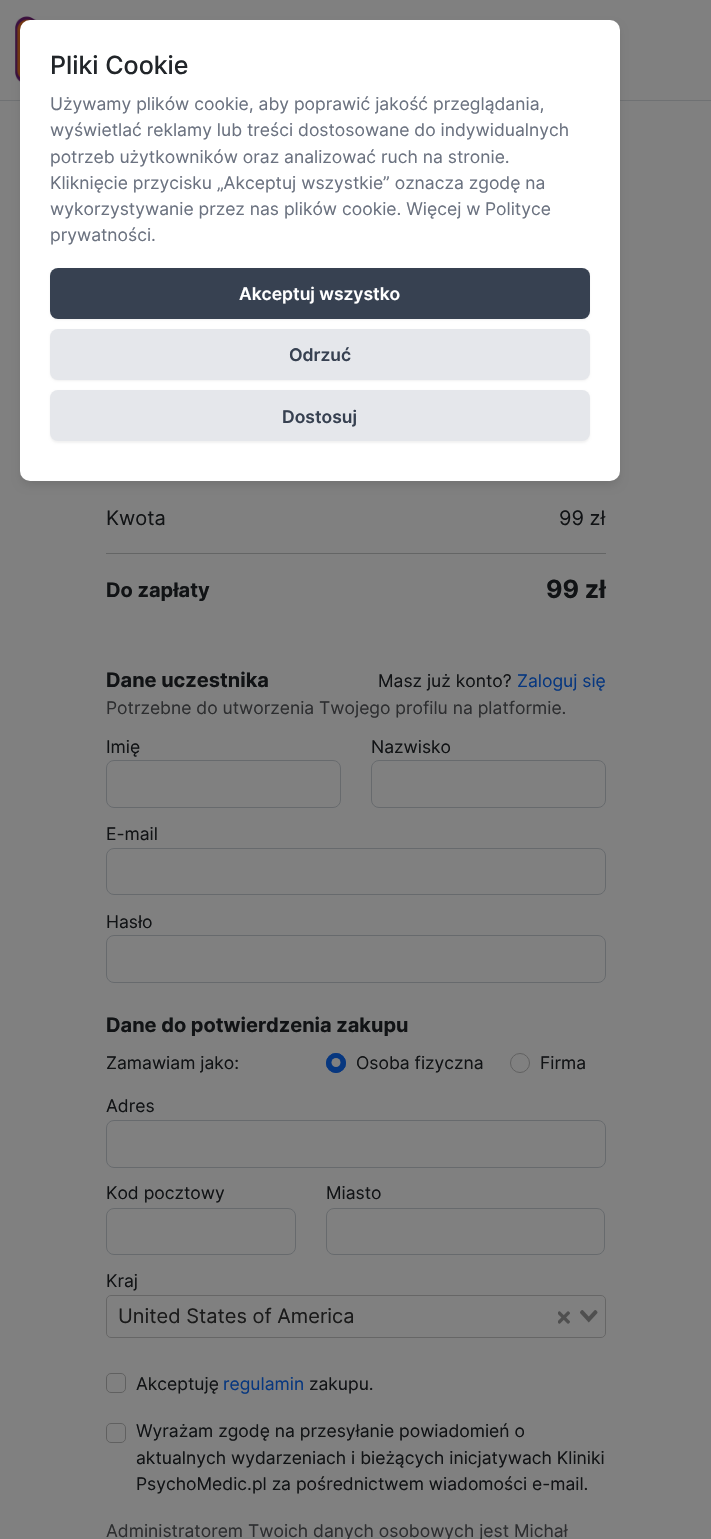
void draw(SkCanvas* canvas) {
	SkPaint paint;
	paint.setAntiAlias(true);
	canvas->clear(0xff808080);
	paint.setColor(0xff6f7173);
	canvas->drawRect(SkRect::MakeXYWH(0, 100, 711, 1), paint);
	canvas->drawImageRect(SkImages::DeferredFromEncodedData(SkData::MakeFromFileName("img1.png")), SkRect::MakeXYWH(15, 16, 250, 68), SkSamplingOptions());
	paint.setColor(0x1a000000);
	paint.setMaskFilter(SkMaskFilter::MakeBlur(kNormal_SkBlurStyle, 4));
	canvas->drawRoundRect(SkRect::MakeXYWH(21, 26, 598, 459), 9, 9, paint);
	paint.setMaskFilter(nullptr);
	paint.setColor(0xffffffff);
	canvas->drawRoundRect(SkRect::MakeXYWH(20, 20, 600, 461), 10, 10, paint);
	SkFont f1(fontMgr->matchFamilyStyle("Inter", SkFontStyle(500, SkFontStyle::kNormal_Width, SkFontStyle::kUpright_Slant)), 25);
	f1.setSubpixel(true);
	paint.setColor(0xff212529);
	canvas->drawString("Pliki Cookie", 50, 74, f1, paint);
	SkFont f2(fontMgr->matchFamilyStyle("Inter", SkFontStyle::Normal()), 17.5);
	f2.setSubpixel(true);
	paint.setColor(0xff6b7280);
	canvas->drawString("Używamy plików cookie, aby poprawić jakość przeglądania,", 50, 110, f2, paint);
	canvas->drawString("wyświetlać reklamy lub treści dostosowane do indywidualnych", 50, 136, f2, paint);
	canvas->drawString("potrzeb użytkowników oraz analizować ruch na stronie.", 50, 163, f2, paint);
	canvas->drawString("Kliknięcie przycisku „Akceptuj wszystkie” oznacza zgodę na", 50, 189, f2, paint);
	canvas->drawString("wykorzystywanie przez nas plików cookie. Więcej w", 50, 215, f2, paint);
	canvas->drawString("Polityce", 485, 215, f2, paint);
	canvas->drawString("prywatności", 50, 241, f2, paint);
	canvas->drawString(".", 151, 241, f2, paint);
	paint.setColor(0x0d000000);
	paint.setMaskFilter(SkMaskFilter::MakeBlur(kNormal_SkBlurStyle, 1));
	canvas->drawRoundRect(SkRect::MakeXYWH(50, 269, 540, 51), 8, 8, paint);
	paint.setMaskFilter(nullptr);
	paint.setColor(0xff374151);
	canvas->drawRoundRect(SkRect::MakeXYWH(50, 268, 540, 51), 8, 8, paint);
	SkFont f3(fontMgr->matchFamilyStyle("Inter", SkFontStyle(600, SkFontStyle::kNormal_Width, SkFontStyle::kUpright_Slant)), 17.5);
	f3.setSubpixel(true);
	paint.setColor(0xffffffff);
	canvas->drawString("Akceptuj wszystko", 239, 300, f3, paint);
	paint.setColor(0x0d000000);
	paint.setMaskFilter(SkMaskFilter::MakeBlur(kNormal_SkBlurStyle, 1));
	canvas->drawRoundRect(SkRect::MakeXYWH(50, 330, 540, 51), 8, 8, paint);
	paint.setMaskFilter(nullptr);
	paint.setColor(0xffe5e7eb);
	canvas->drawRoundRect(SkRect::MakeXYWH(50, 329, 540, 51), 8, 8, paint);
	paint.setColor(0xff374151);
	canvas->drawString("Odrzuć", 289, 361, f3, paint);
	paint.setColor(0x0d000000);
	paint.setMaskFilter(SkMaskFilter::MakeBlur(kNormal_SkBlurStyle, 1));
	canvas->drawRoundRect(SkRect::MakeXYWH(50, 391, 540, 52), 8, 8, paint);
	paint.setMaskFilter(nullptr);
	paint.setColor(0xffe5e7eb);
	canvas->drawRoundRect(SkRect::MakeXYWH(50, 390, 540, 51), 8, 8, paint);
	paint.setColor(0xff374151);
	canvas->drawString("Dostosuj", 282, 423, f3, paint);
	SkFont f4(fontMgr->matchFamilyStyle("Inter", SkFontStyle::Normal()), 20);
	f4.setSubpixel(true);
	paint.setColor(0xff111315);
	canvas->drawString("Kwota", 106, 525, f4, paint);
	canvas->drawString("99 zł", 559, 525, f4, paint);
	paint.setColor(0xff646565);
	canvas->drawRect(SkRect::MakeXYWH(106, 553, 500, 1), paint);
	SkFont f5(fontMgr->matchFamilyStyle("Inter", SkFontStyle::Bold()), 20);
	f5.setSubpixel(true);
	paint.setColor(0xff111315);
	canvas->drawString("Do zapłaty", 106, 597, f5, paint);
	SkFont f6(fontMgr->matchFamilyStyle("Inter", SkFontStyle::Bold()), 25);
	f6.setSubpixel(true);
	canvas->drawString("99 zł", 546, 598, f6, paint);
	canvas->drawString("Dane uczestnika", 106, 687, f5, paint);
	canvas->drawString("Masz już konto?", 378, 687, f2, paint);
	paint.setColor(0xff07377f);
	canvas->drawString("Zaloguj się", 517, 687, f2, paint);
	paint.setColor(0xff2d2e30);
	canvas->drawString("Potrzebne do utworzenia Twojego profilu na platformie.", 106, 714, f2, paint);
	paint.setColor(0xff111315);
	canvas->drawString("Imię", 106, 753, f2, paint);
	paint.setStroke(true);
	paint.setStrokeWidth(1);
	paint.setColor(0xff676a6d);
	canvas->drawRoundRect(SkRect::MakeXYWH(106.5, 760.5, 234, 47), 7.5, 7.5, paint);
	paint.setStroke(false);
	paint.setColor(0xff111315);
	canvas->drawString("Nazwisko", 371, 753, f2, paint);
	paint.setStroke(true);
	paint.setColor(0xff676a6d);
	canvas->drawRoundRect(SkRect::MakeXYWH(371.5, 760.5, 234, 47), 7.5, 7.5, paint);
	paint.setStroke(false);
	paint.setColor(0xff111315);
	canvas->drawString("E-mail", 106, 840, f2, paint);
	paint.setStroke(true);
	paint.setColor(0xff676a6d);
	canvas->drawRoundRect(SkRect::MakeXYWH(106.5, 848.5, 499, 46), 7.5, 7.5, paint);
	paint.setStroke(false);
	paint.setColor(0xff111315);
	canvas->drawString("Hasło", 106, 928, f2, paint);
	paint.setStroke(true);
	paint.setColor(0xff676a6d);
	canvas->drawRoundRect(SkRect::MakeXYWH(106.5, 935.5, 499, 47), 7.5, 7.5, paint);
	paint.setStroke(false);
	paint.setColor(0xff111315);
	canvas->drawString("Dane do potwierdzenia zakupu", 106, 1032, f5, paint);
	canvas->drawString("Zamawiam jako:", 106, 1069, f2, paint);
	paint.setColor(0xff07377f);
	canvas->drawCircle(336, 1063, 10, paint);
	paint.setColor(0xff808080);
	canvas->drawCircle(336, 1062.5, 4.5, paint);
	paint.setStroke(true);
	paint.setColor(0xff07377f);
	canvas->drawCircle(336, 1063, 9.5, paint);
	paint.setStroke(false);
	paint.setColor(0xff111315);
	canvas->drawString("Osoba fizyczna", 356, 1069, f2, paint);
	paint.setStroke(true);
	paint.setColor(0xff606060);
	canvas->drawCircle(520, 1063, 9.5, paint);
	paint.setStroke(false);
	paint.setColor(0xff111315);
	canvas->drawString("Firma", 540, 1069, f2, paint);
	canvas->drawString("Adres", 106, 1112, f2, paint);
	paint.setStroke(true);
	paint.setColor(0xff676a6d);
	canvas->drawRoundRect(SkRect::MakeXYWH(106.5, 1120.5, 499, 47), 7.5, 7.5, paint);
	paint.setStroke(false);
	paint.setColor(0xff111315);
	canvas->drawString("Kod pocztowy", 106, 1199, f2, paint);
	paint.setStroke(true);
	paint.setColor(0xff676a6d);
	canvas->drawRoundRect(SkRect::MakeXYWH(106.5, 1208.5, 189, 46), 7.5, 7.5, paint);
	paint.setStroke(false);
	paint.setColor(0xff111315);
	canvas->drawString("Miasto", 326, 1199, f2, paint);
	paint.setStroke(true);
	paint.setColor(0xff676a6d);
	canvas->drawRoundRect(SkRect::MakeXYWH(326.5, 1208.5, 278, 46), 7.5, 7.5, paint);
	paint.setStroke(false);
	paint.setColor(0xff111315);
	canvas->drawString("Kraj", 106, 1287, f2, paint);
	paint.setStroke(true);
	paint.setColor(0xff666666);
	canvas->drawRoundRect(SkRect::MakeXYWH(106.5, 1295.5, 499, 42), 4.5, 4.5, paint);
	paint.setStroke(false);
	paint.setColor(0xff1a1a1a);
	canvas->drawString("United States of America", 118, 1323, f4, paint);
	canvas->drawImageRect(SkImages::DeferredFromEncodedData(SkData::MakeFromFileName("img2.png")), SkRect::MakeXYWH(558, 1311, 12, 13), SkSamplingOptions());
	canvas->drawImageRect(SkImages::DeferredFromEncodedData(SkData::MakeFromFileName("img3.png")), SkRect::MakeXYWH(580, 1310, 18, 13), SkSamplingOptions());
	paint.setStroke(true);
	paint.setColor(0xff606060);
	canvas->drawRoundRect(SkRect::MakeXYWH(106.5, 1373.5, 19, 19), 4.5, 4.5, paint);
	paint.setStroke(false);
	paint.setColor(0xff111315);
	canvas->drawString("Akceptuję", 136, 1390, f2, paint);
	paint.setColor(0xff07377f);
	canvas->drawString("regulamin", 223, 1390, f2, paint);
	paint.setColor(0xff111315);
	canvas->drawString("zakupu.", 309, 1390, f2, paint);
	paint.setStroke(true);
	paint.setColor(0xff606060);
	canvas->drawRoundRect(SkRect::MakeXYWH(106.5, 1423.5, 19, 19), 4.5, 4.5, paint);
	paint.setStroke(false);
	paint.setColor(0xff111315);
	canvas->drawString("Wyrażam zgodę na przesyłanie powiadomień o", 136, 1437, f2, paint);
	canvas->drawString("aktualnych wydarzeniach i bieżących inicjatywach Kliniki", 136, 1464, f2, paint);
	canvas->drawString("PsychoMedic.pl za pośrednictwem wiadomości e-mail.", 136, 1490, f2, paint);
	paint.setColor(0xff2d2e30);
	canvas->drawString("Administratorem Twoich danych osobowych jest Michał", 106, 1537, f2, paint);
}
